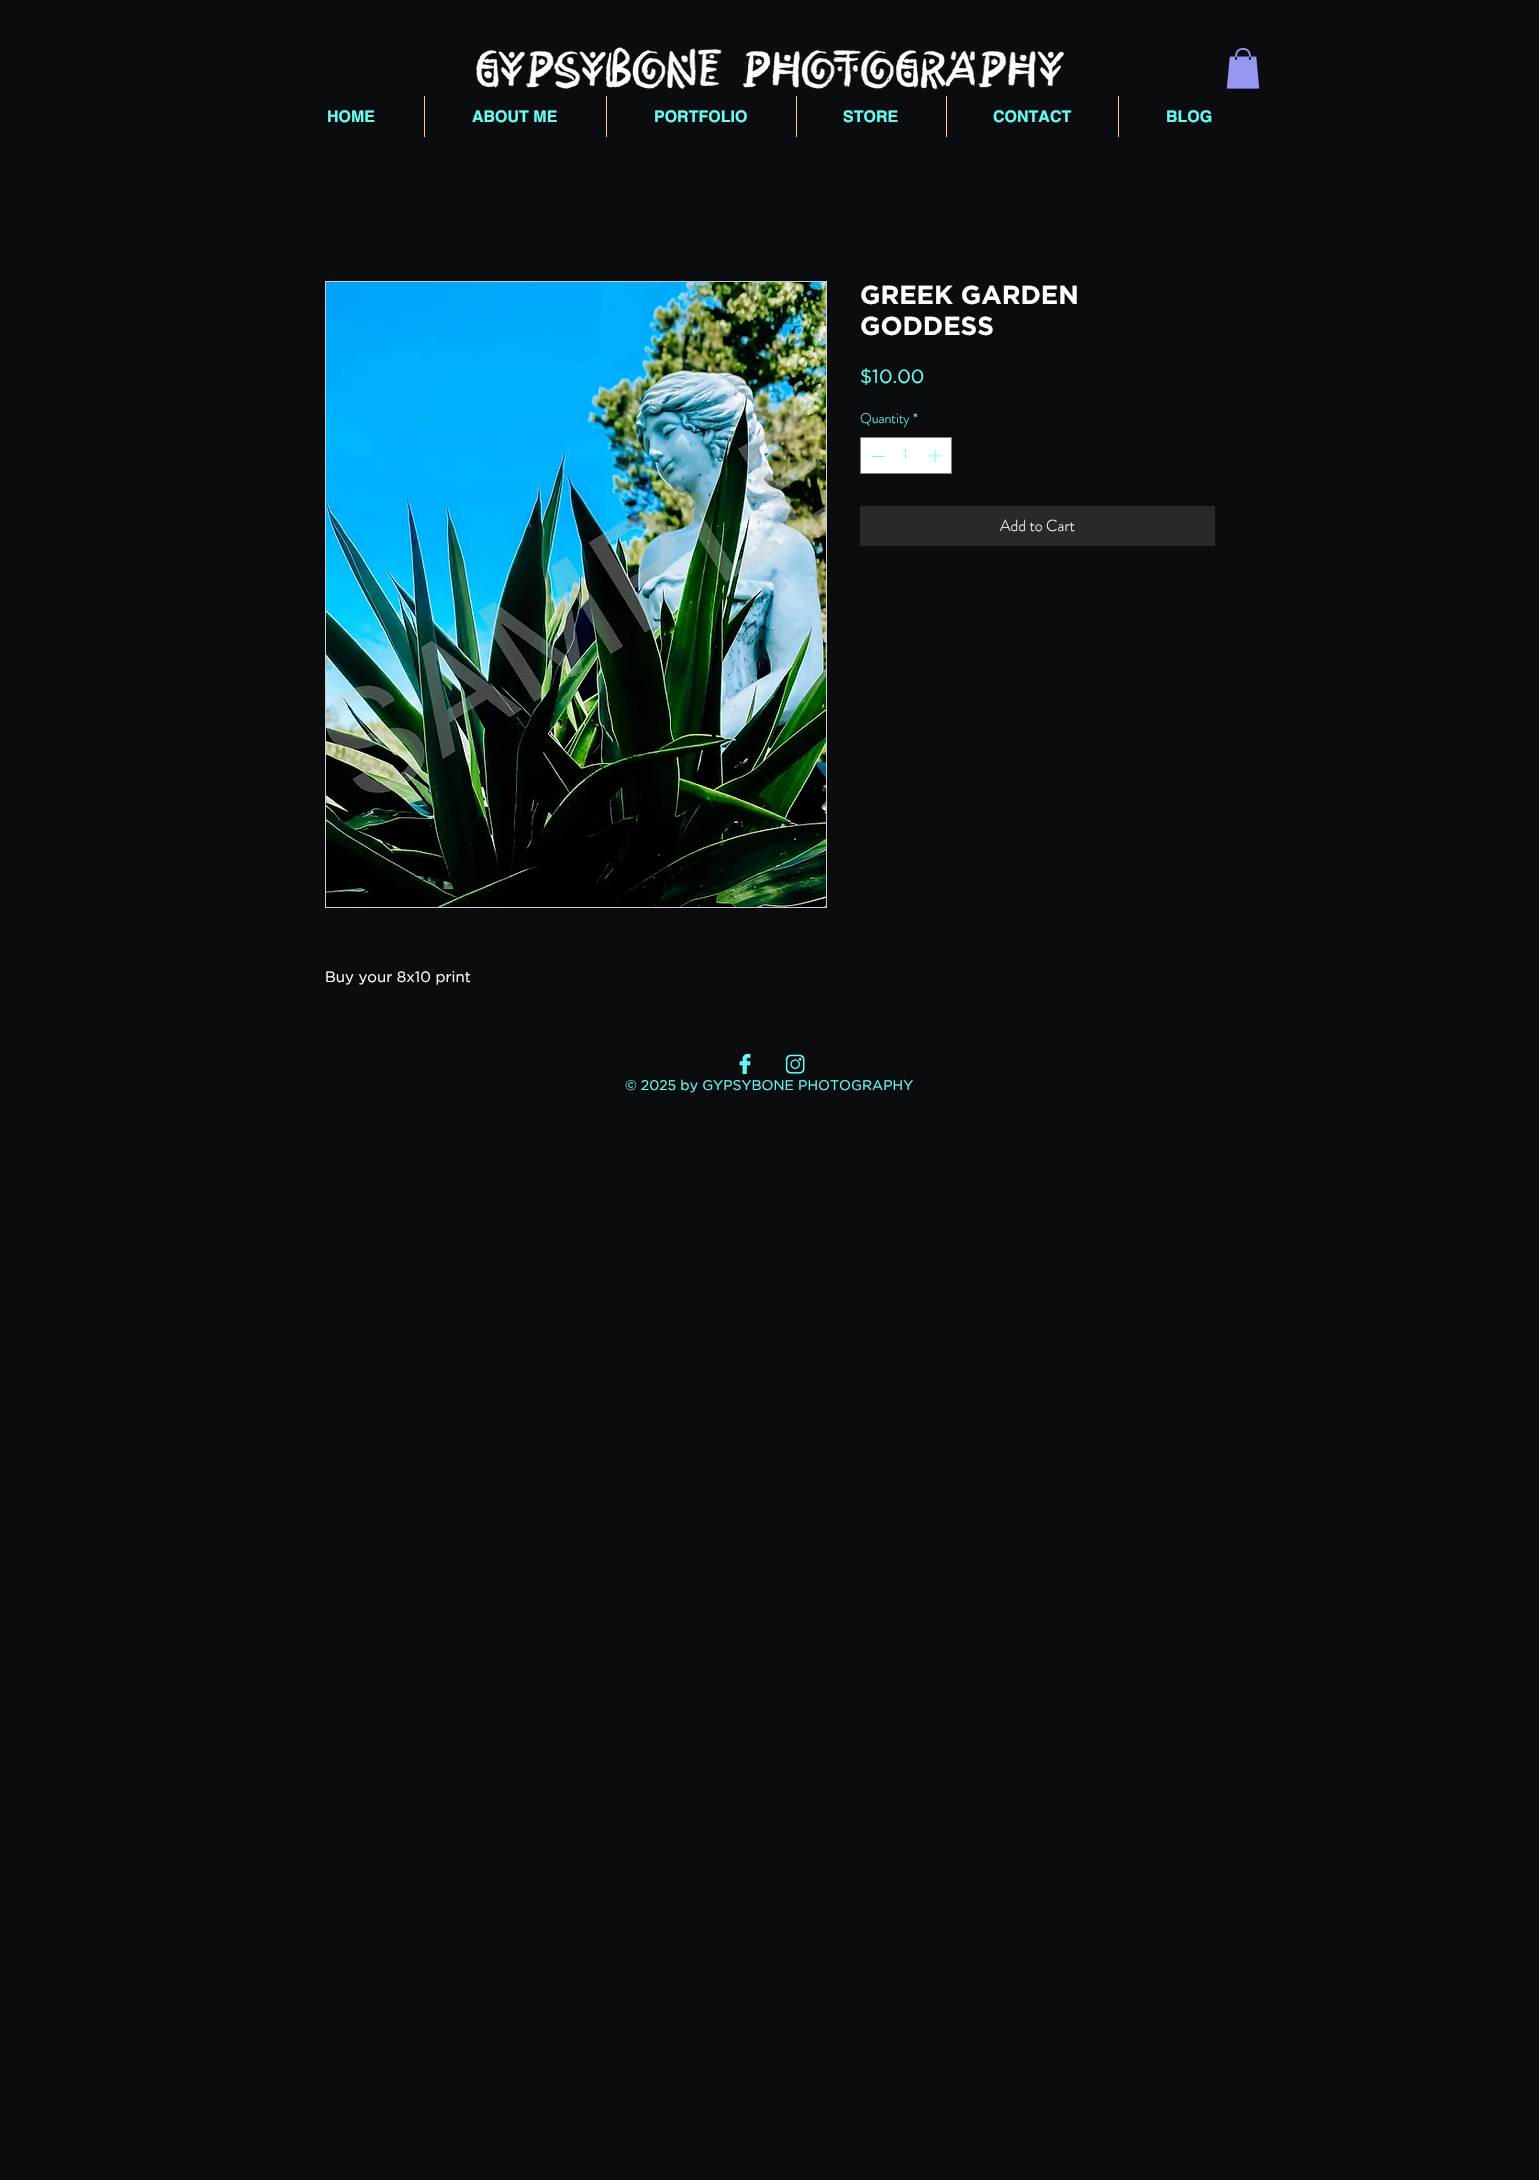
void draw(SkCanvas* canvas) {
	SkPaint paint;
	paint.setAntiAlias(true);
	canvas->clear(0xff0b0c10);
	canvas->drawImageRect(SkImages::DeferredFromEncodedData(SkData::MakeFromFileName("img1.png")), SkRect::MakeXYWH(476, 45, 588, 46), SkSamplingOptions());
	canvas->drawImageRect(SkImages::DeferredFromEncodedData(SkData::MakeFromFileName("img2.png")), SkRect::MakeXYWH(1226, 48, 34, 41), SkSamplingOptions());
	SkFont f1(fontMgr->matchFamilyStyle("helvetica", SkFontStyle::Bold()), 16);
	f1.setSubpixel(true);
	paint.setColor(0xff66fcf1);
	canvas->drawString("HOME", 327, 122, f1, paint);
	paint.setColor(0xffffcb9a);
	canvas->drawRect(SkRect::MakeXYWH(424, 96, 1, 41), paint);
	paint.setColor(0xff66fcf1);
	canvas->drawString("ABOUT ME", 472, 122, f1, paint);
	paint.setColor(0xffffcb9a);
	canvas->drawRect(SkRect::MakeXYWH(606, 96, 1, 41), paint);
	paint.setColor(0xff66fcf1);
	canvas->drawString("PORTFOLIO", 654, 122, f1, paint);
	paint.setColor(0xffffcb9a);
	canvas->drawRect(SkRect::MakeXYWH(796, 96, 1, 41), paint);
	paint.setColor(0xff66fcf1);
	canvas->drawString("STORE", 843, 122, f1, paint);
	paint.setColor(0xffffcb9a);
	canvas->drawRect(SkRect::MakeXYWH(946, 96, 1, 41), paint);
	paint.setColor(0xff66fcf1);
	canvas->drawString("CONTACT", 993, 122, f1, paint);
	paint.setColor(0xffffcb9a);
	canvas->drawRect(SkRect::MakeXYWH(1118, 96, 1, 41), paint);
	paint.setColor(0xff66fcf1);
	canvas->drawString("BLOG", 1166, 122, f1, paint);
	SkFont f2(fontMgr->matchFamilyStyle("Gotham", SkFontStyle::Bold()), 26);
	f2.setSubpixel(true);
	paint.setColor(0xffffffff);
	canvas->drawString("GREEK GARDEN", 860, 304, f2, paint);
	canvas->drawString("GODDESS", 860, 335, f2, paint);
	SkFont f3(fontMgr->matchFamilyStyle("Gotham", SkFontStyle::Normal()), 19);
	f3.setSubpixel(true);
	paint.setColor(0xff66fcf1);
	canvas->drawString("$10.00", 860, 383, f3, paint);
	SkFont f4(fontMgr->matchFamilyStyle("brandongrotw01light", SkFontStyle(300, SkFontStyle::kNormal_Width, SkFontStyle::kUpright_Slant)), 14);
	f4.setSubpixel(true);
	canvas->drawString("Quantity", 860, 423, f4, paint);
	canvas->drawString("*", 913, 423, f4, paint);
	paint.setColor(0xffffffff);
	canvas->drawRect(SkRect::MakeXYWH(860.5, 437.5, 91, 36), paint);
	paint.setStroke(true);
	paint.setStrokeWidth(1);
	paint.setColor(0xff7f7f7f);
	canvas->drawRect(SkRect::MakeXYWH(860.5, 437.5, 91, 36), paint);
	paint.setStroke(false);
	paint.setColor(0xff66fcf1);
	canvas->drawRect(SkRect::MakeXYWH(872, 456, 13, 1), paint);
	canvas->drawString("1", 903, 459, f4, paint);
	canvas->drawImageRect(SkImages::DeferredFromEncodedData(SkData::MakeFromFileName("img3.png")), SkRect::MakeXYWH(928, 449, 14, 14), SkSamplingOptions());
	paint.setColor(0xff292929);
	canvas->drawRect(SkRect::MakeXYWH(860, 506, 355, 40), paint);
	SkFont f5(fontMgr->matchFamilyStyle("brandongrotw01light", SkFontStyle(300, SkFontStyle::kNormal_Width, SkFontStyle::kUpright_Slant)), 16);
	f5.setSubpixel(true);
	paint.setColor(0xffffffff);
	canvas->drawString("Add to Cart", 1000, 531, f5, paint);
	paint.setStroke(true);
	paint.setColor(0xffcfcfcf);
	canvas->drawRect(SkRect::MakeXYWH(325.5, 281.5, 501, 626), paint);
	canvas->drawImageRect(SkImages::DeferredFromEncodedData(SkData::MakeFromFileName("img4.png")), SkRect::MakeXYWH(326, 282, 500, 625), SkSamplingOptions());
	SkFont f6(fontMgr->matchFamilyStyle("Gotham", SkFontStyle::Normal()), 15);
	f6.setSubpixel(true);
	paint.setStroke(false);
	paint.setColor(0xffffffff);
	canvas->drawString("Buy your 8x10 print", 325, 982, f6, paint);
	canvas->drawImageRect(SkImages::DeferredFromEncodedData(SkData::MakeFromFileName("img5.png")), SkRect::MakeXYWH(739, 1054, 12, 20), SkSamplingOptions());
	canvas->drawImageRect(SkImages::DeferredFromEncodedData(SkData::MakeFromFileName("img6.png")), SkRect::MakeXYWH(785, 1054, 20, 20), SkSamplingOptions());
	SkFont f7(fontMgr->matchFamilyStyle("Gotham", SkFontStyle::Normal()), 14);
	f7.setSubpixel(true);
	paint.setColor(0xff66fcf1);
	canvas->drawString("© 2025 by GYPSYBONE PHOTOGRAPHY", 625, 1090, f7, paint);
}
